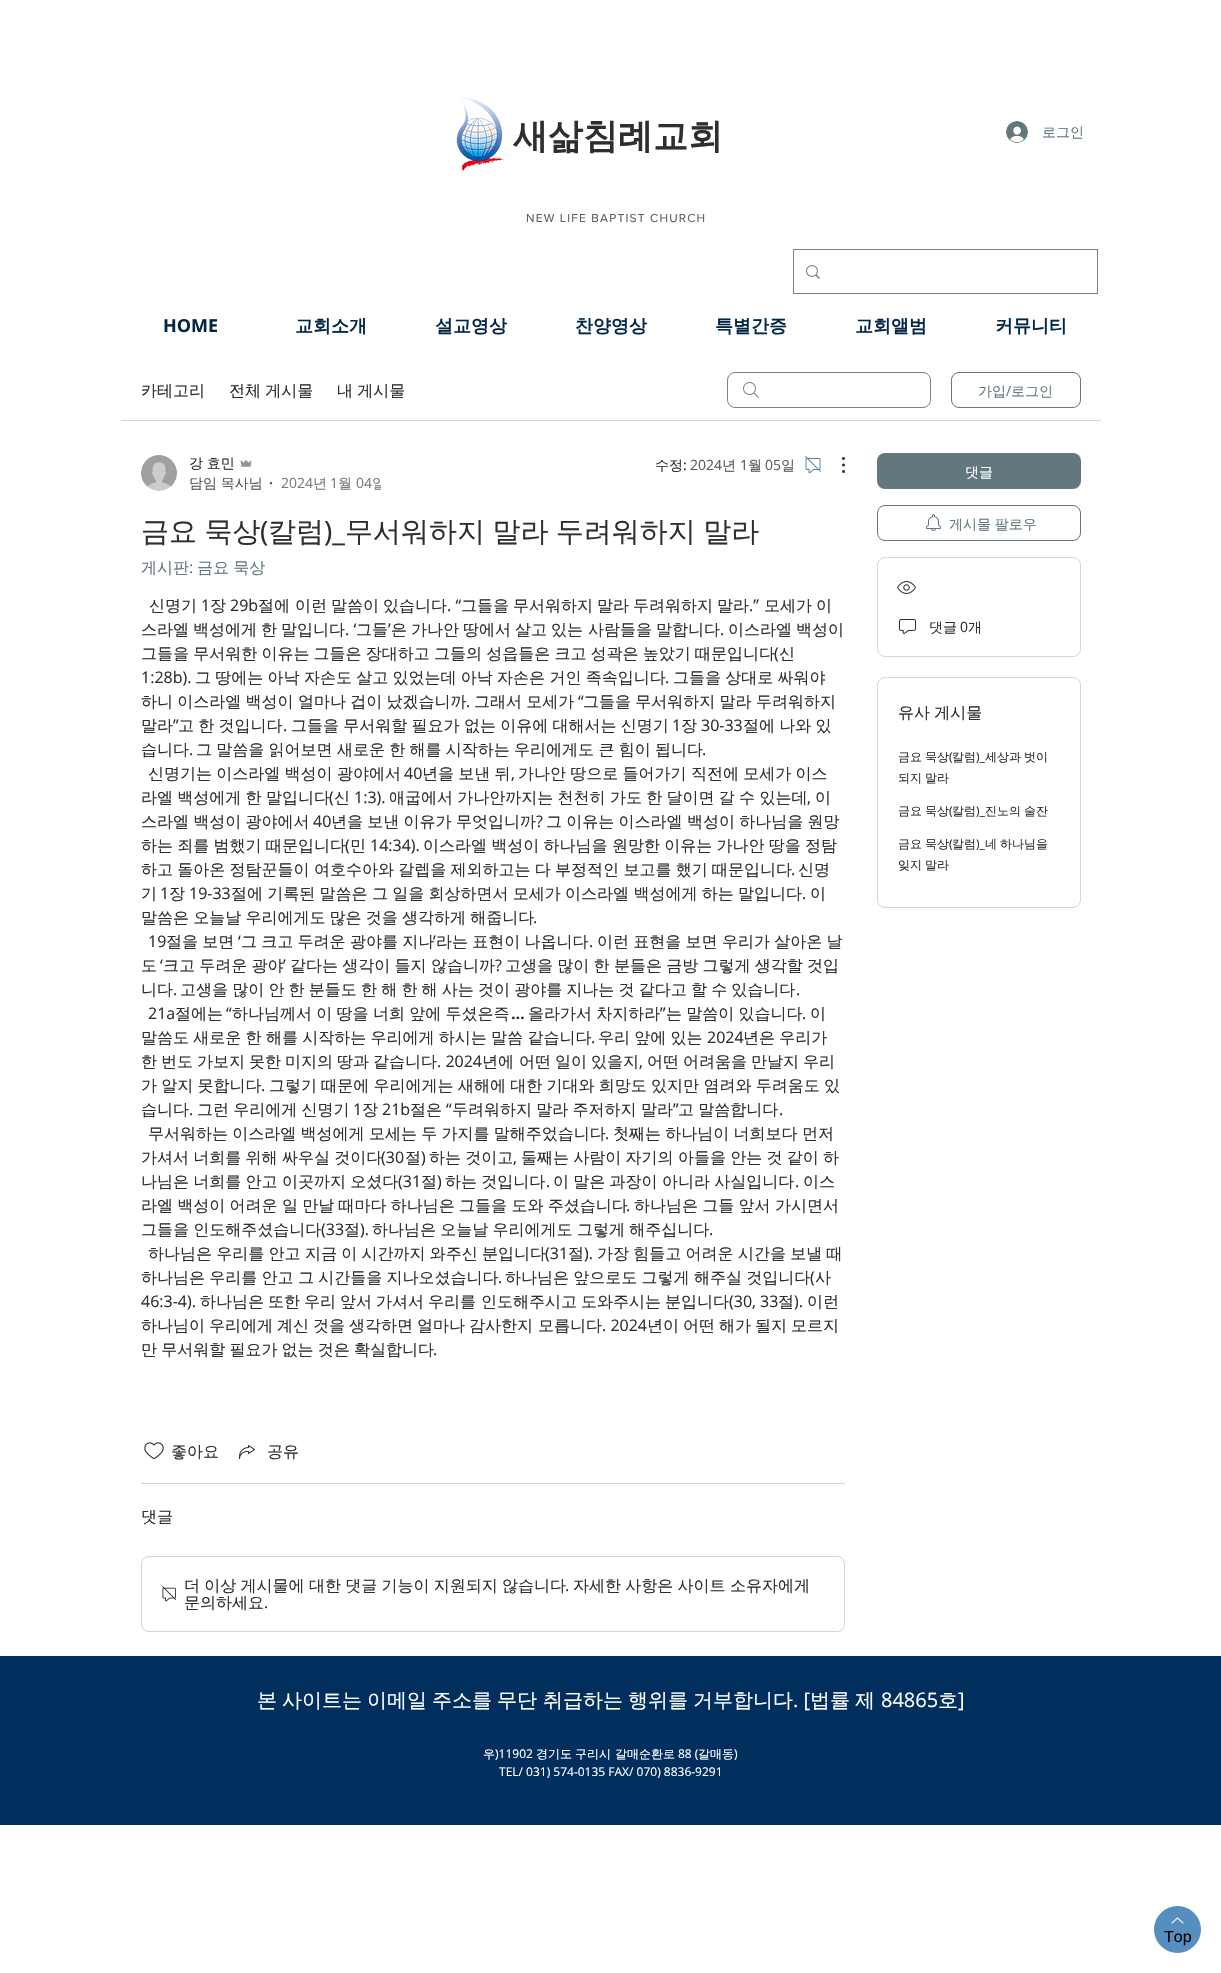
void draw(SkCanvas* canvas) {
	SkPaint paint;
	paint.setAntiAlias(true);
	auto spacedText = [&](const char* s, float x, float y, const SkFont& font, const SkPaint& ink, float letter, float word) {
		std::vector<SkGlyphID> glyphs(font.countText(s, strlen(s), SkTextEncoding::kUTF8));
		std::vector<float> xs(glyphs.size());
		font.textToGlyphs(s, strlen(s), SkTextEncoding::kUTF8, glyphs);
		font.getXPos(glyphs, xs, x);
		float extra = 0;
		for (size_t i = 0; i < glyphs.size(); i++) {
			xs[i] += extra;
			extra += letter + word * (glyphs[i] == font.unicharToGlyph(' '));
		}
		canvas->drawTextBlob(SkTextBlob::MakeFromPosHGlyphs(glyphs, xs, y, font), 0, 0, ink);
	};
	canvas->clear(0xffffffff);
	canvas->drawImageRect(SkImages::DeferredFromEncodedData(SkData::MakeFromFileName("img1.png")), SkRect::MakeXYWH(456, 96, 48, 75), SkSamplingOptions());
	SkFont f1(fontMgr->matchFamilyStyle("WenQuanYi Zen Hei", SkFontStyle::Bold()), 35);
	f1.setSubpixel(true);
	paint.setColor(0xff2f2e2e);
	canvas->drawString("새삶침례교회", 513, 148, f1, paint);
	canvas->drawImageRect(SkImages::DeferredFromEncodedData(SkData::MakeFromFileName("img2.png")), SkRect::MakeXYWH(1006, 121, 22, 22), SkSamplingOptions());
	SkFont f2(fontMgr->matchFamilyStyle("WenQuanYi Zen Hei", SkFontStyle(500, SkFontStyle::kNormal_Width, SkFontStyle::kUpright_Slant)), 14);
	f2.setSubpixel(true);
	paint.setColor(0xff63787e);
	canvas->drawString("로그인", 1042, 137, f2, paint);
	SkFont f3(fontMgr->matchFamilyStyle("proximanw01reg", SkFontStyle::Normal()), 12);
	f3.setSubpixel(true);
	paint.setColor(0xff605e5e);
	spacedText("NEW LIFE BAPTIST CHURCH", 526, 222, f3, paint, 1.2, 0);
	paint.setStroke(true);
	paint.setStrokeWidth(1);
	paint.setColor(0xff828282);
	canvas->drawRect(SkRect::MakeXYWH(793.5, 249.5, 304, 44), paint);
	canvas->drawImageRect(SkImages::DeferredFromEncodedData(SkData::MakeFromFileName("img3.png")), SkRect::MakeXYWH(806, 265, 14, 14), SkSamplingOptions());
	SkFont f4(fontMgr->matchFamilyStyle("Open Sans", SkFontStyle::Bold()), 18);
	f4.setSubpixel(true);
	paint.setStroke(false);
	paint.setColor(0xff012646);
	canvas->drawString("HOME", 163, 332, f4, paint);
	SkFont f5(fontMgr->matchFamilyStyle("WenQuanYi Zen Hei", SkFontStyle::Bold()), 18);
	f5.setSubpixel(true);
	canvas->drawString("교회소개", 295, 332, f5, paint);
	canvas->drawString("설교영상", 435, 332, f5, paint);
	canvas->drawString("찬양영상", 575, 332, f5, paint);
	canvas->drawString("특별간증", 715, 332, f5, paint);
	canvas->drawString("교회앨범", 855, 332, f5, paint);
	canvas->drawString("커뮤니티", 995, 332, f5, paint);
	paint.setColor(0xffd5d5d5);
	canvas->drawRect(SkRect::MakeXYWH(121, 420, 980, 1), paint);
	SkFont f6(fontMgr->matchFamilyStyle("WenQuanYi Zen Hei", SkFontStyle(500, SkFontStyle::kNormal_Width, SkFontStyle::kUpright_Slant)), 16);
	f6.setSubpixel(true);
	paint.setColor(0xff2f2e2e);
	canvas->drawString("카테고리", 141, 396, f6, paint);
	spacedText("전체 게시물", 229, 396, f6, paint, 0, -0.6);
	spacedText("내 게시물", 337, 396, f6, paint, 0, -0.6);
	canvas->drawImageRect(SkImages::DeferredFromEncodedData(SkData::MakeFromFileName("img4.png")), SkRect::MakeXYWH(743, 382, 16, 16), SkSamplingOptions());
	paint.setStroke(true);
	paint.setColor(0xff828282);
	canvas->drawRoundRect(SkRect::MakeXYWH(727.5, 372.5, 203, 35), 7.5, 7.5, paint);
	paint.setColor(0xff63787e);
	canvas->drawRoundRect(SkRect::MakeXYWH(951.5, 372.5, 129, 35), 7.5, 7.5, paint);
	paint.setStroke(false);
	canvas->drawString("가입", 978, 396, f2, paint);
	SkFont f7(fontMgr->matchFamilyStyle("Open Sans", SkFontStyle::Normal()), 14);
	f7.setSubpixel(true);
	canvas->drawString("/", 1006, 396, f7, paint);
	canvas->drawString("로그인", 1011, 396, f2, paint);
	canvas->drawImageRect(SkImages::DeferredFromEncodedData(SkData::MakeFromFileName("img5.png")), SkRect::MakeXYWH(141, 455, 36, 36), SkSamplingOptions());
	paint.setColor(0xff2f2e2e);
	spacedText("강 효민", 189, 468, f2, paint, 0, -0.5);
	canvas->drawImageRect(SkImages::DeferredFromEncodedData(SkData::MakeFromFileName("img6.png")), SkRect::MakeXYWH(240, 460, 12, 7), SkSamplingOptions());
	paint.setColor(0xff595858);
	spacedText("담임 목사님", 189, 488, f2, paint, 0, -0.5);
	SkFont f8(fontMgr->matchFamilyStyle("Open Sans", SkFontStyle::Bold()), 14);
	f8.setSubpixel(true);
	canvas->drawString("·", 269, 488, f8, paint);
	paint.setColor(0xff7a7979);
	canvas->drawString("2024", 281, 488, f7, paint);
	canvas->drawString("년", 313, 488, f2, paint);
	canvas->drawString("1", 330, 488, f7, paint);
	canvas->drawString("월", 338, 488, f2, paint);
	canvas->drawString("04", 356, 488, f7, paint);
	canvas->save();
	canvas->clipRect(SkRect::MakeXYWH(177, 453, 204, 40));
	canvas->drawString("일", 372, 488, f2, paint);
	canvas->restore();
	paint.setColor(0xff2f2e2e);
	canvas->drawString("수정", 655, 470, f2, paint);
	canvas->drawString(":", 683, 470, f7, paint);
	paint.setColor(0xff595858);
	canvas->drawString("2024", 690, 470, f7, paint);
	canvas->drawString("년", 722, 470, f2, paint);
	canvas->drawString("1", 740, 470, f7, paint);
	canvas->drawString("월", 748, 470, f2, paint);
	canvas->drawString("05", 765, 470, f7, paint);
	canvas->drawString("일", 781, 470, f2, paint);
	canvas->drawImageRect(SkImages::DeferredFromEncodedData(SkData::MakeFromFileName("img7.png")), SkRect::MakeXYWH(805, 456, 16, 18), SkSamplingOptions());
	canvas->drawImageRect(SkImages::DeferredFromEncodedData(SkData::MakeFromFileName("img8.png")), SkRect::MakeXYWH(842, 457, 3, 16), SkSamplingOptions());
	SkFont f9(fontMgr->matchFamilyStyle("WenQuanYi Zen Hei", SkFontStyle(500, SkFontStyle::kNormal_Width, SkFontStyle::kUpright_Slant)), 28);
	f9.setSubpixel(true);
	paint.setColor(0xff2f2e2e);
	spacedText("금요 묵상", 141, 541, f9, paint, 0, -1);
	SkFont f10(fontMgr->matchFamilyStyle("Open Sans", SkFontStyle::Normal()), 28);
	f10.setSubpixel(true);
	canvas->drawString("(", 260, 541, f10, paint);
	canvas->drawString("칼럼", 268, 541, f9, paint);
	canvas->drawString(")_", 324, 541, f10, paint);
	spacedText("무서워하지 말라 두려워하지 말라", 345, 541, f9, paint, 0, -1);
	paint.setColor(0xff63787e);
	canvas->drawString("게시판", 141, 573, f6, paint);
	SkFont f11(fontMgr->matchFamilyStyle("Open Sans", SkFontStyle::Normal()), 16);
	f11.setSubpixel(true);
	canvas->drawString(":", 189, 573, f11, paint);
	spacedText("금요 묵상", 197, 573, f6, paint, 0, -0.6);
	paint.setColor(0xff2f2e2e);
	canvas->drawString("신명기", 149, 611, f6, paint);
	canvas->drawString("1", 201, 611, f11, paint);
	canvas->drawString("장", 210, 611, f6, paint);
	canvas->drawString("29b", 230, 611, f11, paint);
	canvas->drawString("절에", 258, 611, f6, paint);
	canvas->drawString("이런", 295, 611, f6, paint);
	canvas->drawString("말씀이", 331, 611, f6, paint);
	canvas->drawString("있습니다", 383, 611, f6, paint);
	canvas->drawString(". “", 447, 611, f11, paint);
	canvas->drawString("그들을", 461, 611, f6, paint);
	canvas->drawString("무서워하지", 513, 611, f6, paint);
	canvas->drawString("말라", 597, 611, f6, paint);
	canvas->drawString("두려워하지", 633, 611, f6, paint);
	canvas->drawString("말라", 717, 611, f6, paint);
	canvas->drawString(".”", 749, 611, f11, paint);
	canvas->drawString("모세가", 764, 611, f6, paint);
	canvas->drawString("이", 816, 611, f6, paint);
	canvas->drawString("스라엘", 141, 635, f6, paint);
	canvas->drawString("백성에게", 193, 635, f6, paint);
	canvas->drawString("한", 261, 635, f6, paint);
	canvas->drawString("말입니다", 281, 635, f6, paint);
	canvas->drawString(". ‘", 345, 635, f11, paint);
	canvas->drawString("그들", 356, 635, f6, paint);
	canvas->drawString("’", 388, 635, f11, paint);
	canvas->drawString("은", 391, 635, f6, paint);
	canvas->drawString("가나안", 411, 635, f6, paint);
	canvas->drawString("땅에서", 463, 635, f6, paint);
	canvas->drawString("살고", 515, 635, f6, paint);
	canvas->drawString("있는", 551, 635, f6, paint);
	canvas->drawString("사람들을", 588, 635, f6, paint);
	canvas->drawString("말합니다", 656, 635, f6, paint);
	canvas->drawString(".", 720, 635, f11, paint);
	canvas->drawString("이스라엘", 728, 635, f6, paint);
	canvas->drawString("백성이", 796, 635, f6, paint);
	spacedText("그들을 무서워한 이유는 그들은 장대하고 그들의 성읍들은 크고 성곽은 높았기 때문입니다", 141, 659, f6, paint, 0, -0.6);
	canvas->drawString("(", 774, 659, f11, paint);
	canvas->drawString("신", 779, 659, f6, paint);
	canvas->drawString("1:28b).", 141, 683, f11, paint);
	spacedText("그 땅에는 아낙 자손도 살고 있었는데 아낙 자손은 거인 족속입니다", 195, 683, f6, paint, 0, -0.5);
	canvas->drawString(".", 665, 683, f11, paint);
	spacedText("그들을 상대로 싸워야", 673, 683, f6, paint, 0, -0.5);
	spacedText("하니 이스라엘 백성이 얼마나 겁이 났겠습니까", 141, 707, f6, paint, 0, -0.5);
	canvas->drawString(".", 466, 707, f11, paint);
	spacedText("그래서 모세가", 474, 707, f6, paint, 0, -0.5);
	canvas->drawString("“", 578, 707, f11, paint);
	spacedText("그들을 무서워하지 말라 두려워하지", 583, 707, f6, paint, 0, -0.5);
	canvas->drawString("말라", 141, 731, f6, paint);
	canvas->drawString("”", 173, 731, f11, paint);
	spacedText("고 한 것입니다", 178, 731, f6, paint, 0, -0.5);
	canvas->drawString(".", 283, 731, f11, paint);
	spacedText("그들을 무서워할 필요가 없는 이유에 대해서는 신명기", 291, 731, f6, paint, 0, -0.5);
	canvas->drawString("1", 672, 731, f11, paint);
	canvas->drawString("장", 681, 731, f6, paint);
	canvas->drawString("30-33", 701, 731, f11, paint);
	spacedText("절에 나와 있", 743, 731, f6, paint, 0, -0.5);
	canvas->drawString("습니다", 141, 755, f6, paint);
	canvas->drawString(".", 189, 755, f11, paint);
	spacedText("그 말씀을 읽어보면 새로운 한 해를 시작하는 우리에게도 큰 힘이 됩니다", 196, 755, f6, paint, 0, -0.5);
	canvas->drawString(".", 702, 755, f11, paint);
	spacedText("신명기는 이스라엘 백성이 광야에서", 148, 779, f6, paint, 0, -0.5);
	canvas->drawString("40", 404, 779, f11, paint);
	spacedText("년을 보낸 뒤", 422, 779, f6, paint, 0, -0.5);
	canvas->drawString(",", 511, 779, f11, paint);
	spacedText("가나안 땅으로 들어가기 직전에 모세가 이스", 518, 779, f6, paint, 0, -0.5);
	spacedText("라엘 백성에게 한 말입니다", 141, 803, f6, paint, 0, -0.5);
	canvas->drawString("(", 329, 803, f11, paint);
	canvas->drawString("신", 334, 803, f6, paint);
	canvas->drawString("1:3).", 354, 803, f11, paint);
	spacedText("애굽에서 가나안까지는 천천히 가도 한 달이면 갈 수 있는데", 389, 803, f6, paint, 0, -0.5);
	canvas->drawString(",", 807, 803, f11, paint);
	canvas->drawString("이", 815, 803, f6, paint);
	spacedText("스라엘 백성이 광야에서", 141, 827, f6, paint, 0, -0.5);
	canvas->drawString("40", 313, 827, f11, paint);
	spacedText("년을 보낸 이유가 무엇입니까", 331, 827, f6, paint, 0, -0.5);
	canvas->drawString("?", 536, 827, f11, paint);
	spacedText("그 이유는 이스라엘 백성이 하나님을 원망", 546, 827, f6, paint, 0, -0.5);
	spacedText("하는 죄를 범했기 때문입니다", 141, 851, f6, paint, 0, -0.5);
	canvas->drawString("(", 345, 851, f11, paint);
	canvas->drawString("민", 350, 851, f6, paint);
	canvas->drawString("14:34).", 370, 851, f11, paint);
	spacedText("이스라엘 백성이 하나님을 원망한 이유는 가나안 땅을 정탐", 423, 851, f6, paint, 0, -0.5);
	spacedText("하고 돌아온 정탐꾼들이 여호수아와 갈렙을 제외하고는 다 부정적인 보고를 했기 때문입니다", 141, 875, f6, paint, 0, -0.5);
	canvas->drawString(".", 791, 875, f11, paint);
	canvas->drawString("신명", 798, 875, f6, paint);
	canvas->drawString("기", 141, 899, f6, paint);
	canvas->drawString("1", 160, 899, f11, paint);
	canvas->drawString("장", 169, 899, f6, paint);
	canvas->drawString("19-33", 189, 899, f11, paint);
	spacedText("절에 기록된 말씀은 그 일을 회상하면서 모세가 이스라엘 백성에게 하는 말입니다", 231, 899, f6, paint, 0, -0.5);
	canvas->drawString(".", 802, 899, f11, paint);
	canvas->drawString("이", 810, 899, f6, paint);
	spacedText("말씀은 오늘날 우리에게도 많은 것을 생각하게 해줍니다", 141, 923, f6, paint, 0, -0.6);
	canvas->drawString(".", 533, 923, f11, paint);
	canvas->drawString("19", 148, 947, f11, paint);
	spacedText("절을 보면", 166, 947, f6, paint, 0, -0.5);
	canvas->drawString("‘", 238, 947, f11, paint);
	spacedText("그 크고 두려운 광야를 지나", 241, 947, f6, paint, 0, -0.5);
	canvas->drawString("’", 433, 947, f11, paint);
	spacedText("라는 표현이 나옵니다", 436, 947, f6, paint, 0, -0.5);
	canvas->drawString(".", 589, 947, f11, paint);
	spacedText("이런 표현을 보면 우리가 살아온 날", 597, 947, f6, paint, 0, -0.5);
	canvas->drawString("도", 141, 971, f6, paint);
	canvas->drawString("‘", 160, 971, f11, paint);
	spacedText("크고 두려운 광야", 163, 971, f6, paint, 0, -0.5);
	canvas->drawString("’", 283, 971, f11, paint);
	spacedText("같다는 생각이 들지 않습니까", 290, 971, f6, paint, 0, -0.5);
	canvas->drawString("?", 495, 971, f11, paint);
	spacedText("고생을 많이 한 분들은 금방 그렇게 생각할 것입", 505, 971, f6, paint, 0, -0.5);
	canvas->drawString("니다", 141, 995, f6, paint);
	canvas->drawString(".", 173, 995, f11, paint);
	spacedText("고생을 많이 안 한 분들도 한 해 한 해 사는 것이 광야를 지나는 것 같다고 할 수 있습니다", 180, 995, f6, paint, 0, -0.6);
	canvas->drawString(".", 796, 995, f11, paint);
	canvas->drawString("21a", 148, 1019, f11, paint);
	canvas->drawString("절에는", 175, 1019, f6, paint);
	canvas->drawString("“", 226, 1019, f11, paint);
	spacedText("하나님께서 이 땅을 너희 앞에 두셨은즉", 232, 1019, f6, paint, 0, -0.5);
	SkFont f12(fontMgr->matchFamilyStyle("Open Sans", SkFontStyle::Bold()), 16);
	f12.setSubpixel(true);
	canvas->drawString("…", 511, 1019, f12, paint);
	spacedText("올라가서 차지하라", 528, 1019, f6, paint, 0, -0.5);
	canvas->drawString("”", 660, 1019, f11, paint);
	spacedText("는 말씀이 있습니다", 666, 1019, f6, paint, 0, -0.5);
	canvas->drawString(".", 802, 1019, f11, paint);
	canvas->drawString("이", 810, 1019, f6, paint);
	spacedText("말씀도 새로운 한 해를 시작하는 우리에게 하시는 말씀 같습니다", 141, 1043, f6, paint, 0, -0.5);
	canvas->drawString(".", 591, 1043, f11, paint);
	spacedText("우리 앞에 있는", 598, 1043, f6, paint, 0, -0.5);
	canvas->drawString("2024", 707, 1043, f11, paint);
	spacedText("년은 우리가", 743, 1043, f6, paint, 0, -0.5);
	canvas->drawString("한", 141, 1067, f6, paint);
	canvas->drawString("번도", 161, 1067, f6, paint);
	canvas->drawString("가보지", 197, 1067, f6, paint);
	canvas->drawString("못한", 249, 1067, f6, paint);
	canvas->drawString("미지의", 285, 1067, f6, paint);
	canvas->drawString("땅과", 337, 1067, f6, paint);
	canvas->drawString("같습니다", 373, 1067, f6, paint);
	canvas->drawString(". 2024", 437, 1067, f11, paint);
	canvas->drawString("년에", 482, 1067, f6, paint);
	canvas->drawString("어떤", 519, 1067, f6, paint);
	canvas->drawString("일이", 555, 1067, f6, paint);
	canvas->drawString("있을지", 591, 1067, f6, paint);
	canvas->drawString(",", 639, 1067, f11, paint);
	canvas->drawString("어떤", 647, 1067, f6, paint);
	canvas->drawString("어려움을", 683, 1067, f6, paint);
	canvas->drawString("만날지", 751, 1067, f6, paint);
	canvas->drawString("우리", 803, 1067, f6, paint);
	spacedText("가 알지 못합니다", 141, 1091, f6, paint, 0, -0.5);
	canvas->drawString(".", 261, 1091, f11, paint);
	spacedText("그렇기 때문에 우리에게는 새해에 대한 기대와 희망도 있지만 염려와 두려움도 있", 269, 1091, f6, paint, 0, -0.5);
	canvas->drawString("습니다", 141, 1115, f6, paint);
	canvas->drawString(".", 189, 1115, f11, paint);
	spacedText("그런 우리에게 신명기", 197, 1115, f6, paint, 0, -0.5);
	canvas->drawString("1", 353, 1115, f11, paint);
	canvas->drawString("장", 362, 1115, f6, paint);
	canvas->drawString("21b", 382, 1115, f11, paint);
	canvas->drawString("절은", 410, 1115, f6, paint);
	canvas->drawString("“", 446, 1115, f11, paint);
	spacedText("두려워하지 말라 주저하지 말라", 452, 1115, f6, paint, 0, -0.5);
	canvas->drawString("”", 673, 1115, f11, paint);
	spacedText("고 말씀합니다", 678, 1115, f6, paint, 0, -0.5);
	canvas->drawString(".", 779, 1115, f11, paint);
	spacedText("무서워하는 이스라엘 백성에게 모세는 두 가지를 말해주었습니다", 148, 1139, f6, paint, 0, -0.5);
	canvas->drawString(".", 605, 1139, f11, paint);
	spacedText("첫째는 하나님이 너희보다 먼저", 613, 1139, f6, paint, 0, -0.5);
	spacedText("가셔서 너희를 위해 싸우실 것이다", 141, 1163, f6, paint, 0, -0.5);
	canvas->drawString("(30", 381, 1163, f11, paint);
	canvas->drawString("절", 405, 1163, f6, paint);
	canvas->drawString(")", 421, 1163, f11, paint);
	spacedText("하는 것이고", 429, 1163, f6, paint, 0, -0.5);
	canvas->drawString(",", 513, 1163, f11, paint);
	spacedText("둘째는 사람이 자기의 아들을 안는 것 같이 하", 521, 1163, f6, paint, 0, -0.5);
	spacedText("나님은 너희를 안고 이곳까지 오셨다", 141, 1187, f6, paint, 0, -0.5);
	canvas->drawString("(31", 398, 1187, f11, paint);
	canvas->drawString("절", 421, 1187, f6, paint);
	canvas->drawString(")", 437, 1187, f11, paint);
	spacedText("하는 것입니다", 445, 1187, f6, paint, 0, -0.5);
	canvas->drawString(".", 546, 1187, f11, paint);
	spacedText("이 말은 과장이 아니라 사실입니다", 553, 1187, f6, paint, 0, -0.5);
	canvas->drawString(".", 795, 1187, f11, paint);
	canvas->drawString("이스", 803, 1187, f6, paint);
	spacedText("라엘 백성이 어려운 일 만날 때마다 하나님은 그들을 도와 주셨습니다", 141, 1211, f6, paint, 0, -0.5);
	canvas->drawString(".", 626, 1211, f11, paint);
	spacedText("하나님은 그들 앞서 가시면서", 634, 1211, f6, paint, 0, -0.5);
	spacedText("그들을 인도해주셨습니다", 141, 1235, f6, paint, 0, -0.5);
	canvas->drawString("(33", 321, 1235, f11, paint);
	canvas->drawString("절", 344, 1235, f6, paint);
	canvas->drawString(").", 360, 1235, f11, paint);
	spacedText("하나님은 오늘날 우리에게도 그렇게 해주십니다", 372, 1235, f6, paint, 0, -0.5);
	canvas->drawString(".", 709, 1235, f11, paint);
	spacedText("하나님은 우리를 안고 지금 이 시간까지 와주신 분입니다", 148, 1259, f6, paint, 0, -0.5);
	canvas->drawString("(31", 545, 1259, f11, paint);
	canvas->drawString("절", 568, 1259, f6, paint);
	canvas->drawString(").", 584, 1259, f11, paint);
	spacedText("가장 힘들고 어려운 시간을 보낼 때", 597, 1259, f6, paint, 0, -0.5);
	spacedText("하나님은 우리를 안고 그 시간들을 지나오셨습니다", 141, 1283, f6, paint, 0, -0.5);
	canvas->drawString(".", 498, 1283, f11, paint);
	spacedText("하나님은 앞으로도 그렇게 해주실 것입니다", 505, 1283, f6, paint, 0, -0.5);
	canvas->drawString("(", 810, 1283, f11, paint);
	canvas->drawString("사", 815, 1283, f6, paint);
	canvas->drawString("46:3-4).", 141, 1307, f11, paint);
	canvas->drawString("하나님은", 200, 1307, f6, paint);
	canvas->drawString("또한", 268, 1307, f6, paint);
	canvas->drawString("우리", 304, 1307, f6, paint);
	canvas->drawString("앞서", 340, 1307, f6, paint);
	canvas->drawString("가셔서", 376, 1307, f6, paint);
	canvas->drawString("우리를", 428, 1307, f6, paint);
	canvas->drawString("인도해주시고", 481, 1307, f6, paint);
	canvas->drawString("도와주시는", 581, 1307, f6, paint);
	canvas->drawString("분입니다", 665, 1307, f6, paint);
	canvas->drawString("(30, 33", 729, 1307, f11, paint);
	canvas->drawString("절", 778, 1307, f6, paint);
	canvas->drawString(").", 794, 1307, f11, paint);
	canvas->drawString("이런", 807, 1307, f6, paint);
	canvas->drawString("하나님이", 141, 1331, f6, paint);
	canvas->drawString("우리에게", 209, 1331, f6, paint);
	canvas->drawString("계신", 277, 1331, f6, paint);
	canvas->drawString("것을", 313, 1331, f6, paint);
	canvas->drawString("생각하면", 349, 1331, f6, paint);
	canvas->drawString("얼마나", 417, 1331, f6, paint);
	canvas->drawString("감사한지", 469, 1331, f6, paint);
	canvas->drawString("모릅니다", 538, 1331, f6, paint);
	canvas->drawString(". 2024", 602, 1331, f11, paint);
	canvas->drawString("년이", 647, 1331, f6, paint);
	canvas->drawString("어떤", 683, 1331, f6, paint);
	canvas->drawString("해가", 719, 1331, f6, paint);
	canvas->drawString("될지", 755, 1331, f6, paint);
	canvas->drawString("모르지", 791, 1331, f6, paint);
	spacedText("만 무서워할 필요가 없는 것은 확실합니다", 141, 1355, f6, paint, 0, -0.6);
	canvas->drawString(".", 433, 1355, f11, paint);
	canvas->drawImageRect(SkImages::DeferredFromEncodedData(SkData::MakeFromFileName("img9.png")), SkRect::MakeXYWH(144, 1442, 20, 18), SkSamplingOptions());
	canvas->drawString("좋아요", 171, 1457, f6, paint);
	canvas->drawImageRect(SkImages::DeferredFromEncodedData(SkData::MakeFromFileName("img10.png")), SkRect::MakeXYWH(239, 1445, 16, 14), SkSamplingOptions());
	canvas->drawString("공유", 267, 1457, f6, paint);
	paint.setColor(0xffd5d5d5);
	canvas->drawRect(SkRect::MakeXYWH(141, 1483, 704, 1), paint);
	paint.setColor(0xff2f2e2e);
	canvas->drawString("댓글", 141, 1522, f6, paint);
	paint.setStroke(true);
	paint.setColor(0xffd5d5d5);
	canvas->drawRoundRect(SkRect::MakeXYWH(141.5, 1556.5, 703, 75), 7.5, 7.5, paint);
	canvas->drawImageRect(SkImages::DeferredFromEncodedData(SkData::MakeFromFileName("img11.png")), SkRect::MakeXYWH(162, 1586, 14, 16), SkSamplingOptions());
	paint.setStroke(false);
	paint.setColor(0xff2f2e2e);
	spacedText("더 이상 게시물에 대한 댓글 기능이 지원되지 않습니다", 184, 1591, f6, paint, 0, -0.5);
	canvas->drawString(".", 565, 1591, f11, paint);
	spacedText("자세한 사항은 사이트 소유자에게", 573, 1591, f6, paint, 0, -0.5);
	canvas->drawString("문의하세요", 184, 1608, f6, paint);
	canvas->drawString(".", 264, 1608, f11, paint);
	paint.setColor(0xff63787e);
	canvas->drawRoundRect(SkRect::MakeXYWH(877, 453, 204, 36), 8, 8, paint);
	paint.setColor(0xffffffff);
	canvas->drawString("댓글", 965, 477, f2, paint);
	paint.setStroke(true);
	paint.setColor(0xff63787e);
	canvas->drawRoundRect(SkRect::MakeXYWH(877.5, 505.5, 203, 35), 7.5, 7.5, paint);
	canvas->drawImageRect(SkImages::DeferredFromEncodedData(SkData::MakeFromFileName("img12.png")), SkRect::MakeXYWH(926, 514, 15, 17), SkSamplingOptions());
	paint.setStroke(false);
	spacedText("게시물 팔로우", 949, 529, f2, paint, 0, -0.5);
	paint.setStroke(true);
	paint.setColor(0xffd5d5d5);
	canvas->drawRoundRect(SkRect::MakeXYWH(877.5, 557.5, 203, 99), 7.5, 7.5, paint);
	canvas->drawImageRect(SkImages::DeferredFromEncodedData(SkData::MakeFromFileName("img13.png")), SkRect::MakeXYWH(897, 581, 19, 13), SkSamplingOptions());
	canvas->drawImageRect(SkImages::DeferredFromEncodedData(SkData::MakeFromFileName("img14.png")), SkRect::MakeXYWH(899, 619, 17, 15), SkSamplingOptions());
	paint.setStroke(false);
	paint.setColor(0xff2f2e2e);
	canvas->drawString("댓글", 929, 632, f2, paint);
	canvas->drawString("0", 960, 632, f7, paint);
	canvas->drawString("개", 968, 632, f2, paint);
	paint.setStroke(true);
	paint.setColor(0xffd5d5d5);
	canvas->drawRoundRect(SkRect::MakeXYWH(877.5, 677.5, 203, 230), 7.5, 7.5, paint);
	paint.setStroke(false);
	paint.setColor(0xff2f2e2e);
	spacedText("유사 게시물", 898, 718, f6, paint, 0, -0.6);
	SkFont f13(fontMgr->matchFamilyStyle("WenQuanYi Zen Hei", SkFontStyle(500, SkFontStyle::kNormal_Width, SkFontStyle::kUpright_Slant)), 12);
	f13.setSubpixel(true);
	spacedText("금요 묵상", 898, 761, f13, paint, 0, -0.5);
	SkFont f14(fontMgr->matchFamilyStyle("Open Sans", SkFontStyle::Normal()), 12);
	f14.setSubpixel(true);
	canvas->drawString("(", 949, 761, f14, paint);
	canvas->drawString("칼럼", 952, 761, f13, paint);
	canvas->drawString(")_", 976, 761, f14, paint);
	spacedText("세상과 벗이", 985, 761, f13, paint, 0, -0.5);
	spacedText("되지 말라", 898, 782, f13, paint, 0, -0.5);
	spacedText("금요 묵상", 898, 815, f13, paint, 0, -0.5);
	canvas->drawString("(", 949, 815, f14, paint);
	canvas->drawString("칼럼", 952, 815, f13, paint);
	canvas->drawString(")_", 976, 815, f14, paint);
	spacedText("진노의 술잔", 985, 815, f13, paint, 0, -0.5);
	spacedText("금요 묵상", 898, 848, f13, paint, 0, -0.5);
	canvas->drawString("(", 949, 848, f14, paint);
	canvas->drawString("칼럼", 952, 848, f13, paint);
	canvas->drawString(")_", 976, 848, f14, paint);
	spacedText("네 하나님을", 985, 848, f13, paint, 0, -0.5);
	spacedText("잊지 말라", 898, 869, f13, paint, 0, -0.5);
	paint.setColor(0xff002e5d);
	canvas->drawRect(SkRect::MakeXYWH(0, 1656, 1221, 169), paint);
	SkFont f15(fontMgr->matchFamilyStyle("WenQuanYi Zen Hei", SkFontStyle(500, SkFontStyle::kNormal_Width, SkFontStyle::kUpright_Slant)), 20);
	f15.setSubpixel(true);
	paint.setColor(0xffffffff);
	canvas->drawString("본", 257, 1707, f15, paint);
	canvas->drawString("사이트는", 282, 1707, f15, paint);
	canvas->drawString("이메일", 367, 1707, f15, paint);
	canvas->drawString("주소를", 432, 1707, f15, paint);
	canvas->drawString("무단", 497, 1707, f15, paint);
	canvas->drawString("취급하는", 543, 1707, f15, paint);
	canvas->drawString("행위를", 628, 1707, f15, paint);
	canvas->drawString("거부합니다", 693, 1707, f15, paint);
	SkFont f16(fontMgr->matchFamilyStyle("Open Sans", SkFontStyle::Normal()), 20);
	f16.setSubpixel(true);
	canvas->drawString(". [", 793, 1707, f16, paint);
	canvas->drawString("법률", 810, 1707, f15, paint);
	canvas->drawString("제", 855, 1707, f15, paint);
	canvas->drawString("84865", 881, 1707, f16, paint);
	canvas->drawString("호", 938, 1707, f15, paint);
	canvas->drawString("]", 958, 1707, f16, paint);
	canvas->drawString("우", 483, 1758, f13, paint);
	canvas->drawString(")11902", 495, 1758, f14, paint);
	canvas->drawString("경기도", 536, 1758, f13, paint);
	canvas->drawString("구리시", 575, 1758, f13, paint);
	canvas->drawString("갈매순환로", 615, 1758, f13, paint);
	canvas->drawString("88 (", 678, 1758, f14, paint);
	canvas->drawString("갈매동", 698, 1758, f13, paint);
	canvas->drawString(")", 734, 1758, f14, paint);
	canvas->drawString("TEL/ 031) 574-0135 FAX/ 070) 8836-9291", 499, 1776, f14, paint);
	paint.setColor(0xff568ebf);
	canvas->drawCircle(1177.5, 1929.5, 23.5, paint);
	canvas->drawImageRect(SkImages::DeferredFromEncodedData(SkData::MakeFromFileName("img15.png")), SkRect::MakeXYWH(1171, 1917, 13, 7), SkSamplingOptions());
	SkFont f17(fontMgr->matchFamilyStyle("Liberation Sans", SkFontStyle::Normal()), 16);
	f17.setSubpixel(true);
	paint.setColor(0xff000000);
	canvas->drawString("Top", 1164, 1942, f17, paint);
}
